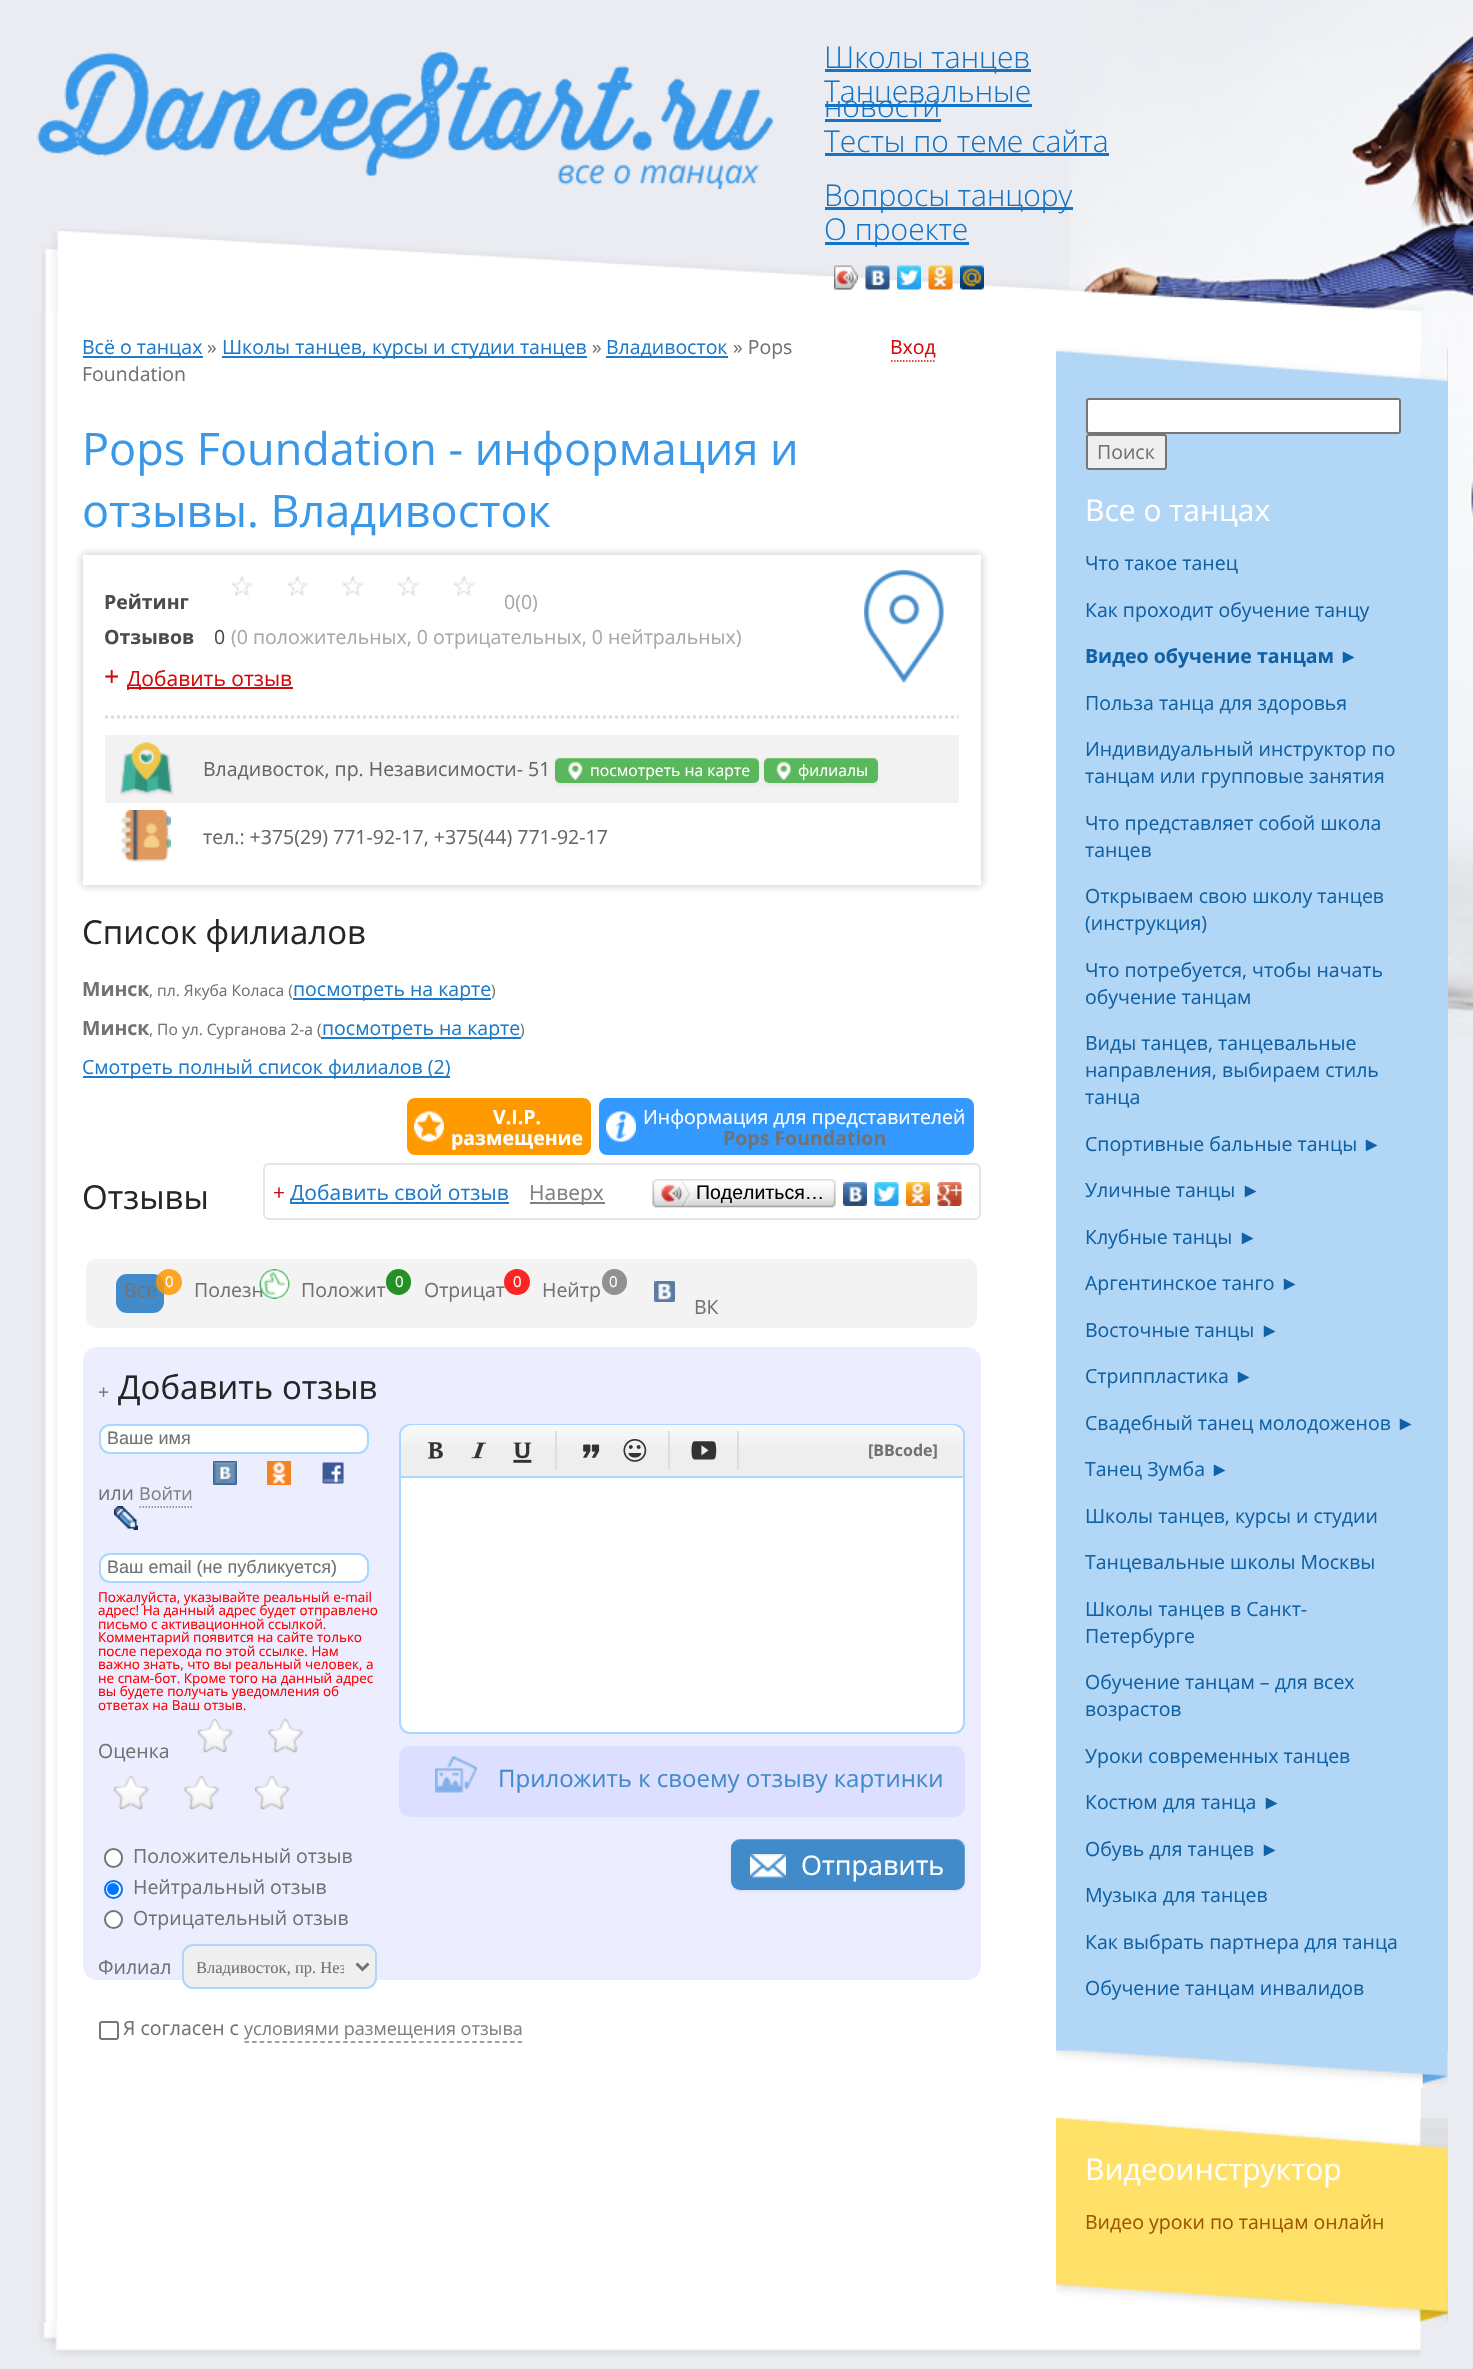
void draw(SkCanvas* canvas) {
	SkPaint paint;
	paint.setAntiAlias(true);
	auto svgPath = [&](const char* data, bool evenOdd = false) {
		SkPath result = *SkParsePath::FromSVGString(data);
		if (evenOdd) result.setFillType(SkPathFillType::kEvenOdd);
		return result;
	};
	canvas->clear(0xffebecf1);
	canvas->drawImageRect(SkImages::DeferredFromEncodedData(SkData::MakeFromFileName("img1.png")), SkRect::MakeXYWH(1069, 0, 404, 1037), SkSamplingOptions());
	canvas->drawImageRect(SkImages::DeferredFromEncodedData(SkData::MakeFromFileName("img2.png")), SkRect::MakeXYWH(37, 51, 737, 138), SkSamplingOptions());
	paint.setColor(0xff1375c9);
	canvas->drawRect(SkRect::MakeXYWH(825, 69, 206, 3), paint);
	SkFont f1(fontMgr->matchFamilyStyle("Open Sans", SkFontStyle(300, SkFontStyle::kNormal_Width, SkFontStyle::kUpright_Slant)), 30);
	f1.setSubpixel(true);
	canvas->drawString("Школы танцев", 824, 68, f1, paint);
	canvas->drawRect(SkRect::MakeXYWH(825, 104, 207, 3), paint);
	canvas->drawString("Танцевальные", 824, 102, f1, paint);
	canvas->drawString("новости", 824, 117, f1, paint);
	canvas->drawRect(SkRect::MakeXYWH(825, 119, 116, 3), paint);
	canvas->drawString("Тесты по теме сайта", 824, 152, f1, paint);
	canvas->drawRect(SkRect::MakeXYWH(825, 153, 284, 3), paint);
	canvas->drawRect(SkRect::MakeXYWH(825, 207, 248, 3), paint);
	canvas->drawString("Вопросы танцору", 824, 206, f1, paint);
	canvas->drawImageRect(SkImages::DeferredFromEncodedData(SkData::MakeFromFileName("img9.png")), SkRect::MakeXYWH(42, 229, 1383, 83), SkSamplingOptions());
	canvas->drawRect(SkRect::MakeXYWH(825, 242, 144, 3), paint);
	canvas->drawString("О проекте", 824, 240, f1, paint);
	canvas->drawImageRect(SkImages::DeferredFromEncodedData(SkData::MakeFromFileName("img3.png")), SkRect::MakeXYWH(834, 265, 24, 25), SkSamplingOptions());
	canvas->drawImageRect(SkImages::DeferredFromEncodedData(SkData::MakeFromFileName("img4.png")), SkRect::MakeXYWH(834, 265, 24, 25), SkSamplingOptions());
	canvas->drawImageRect(SkImages::DeferredFromEncodedData(SkData::MakeFromFileName("img5.png")), SkRect::MakeXYWH(865, 265, 25, 25), SkSamplingOptions());
	canvas->drawImageRect(SkImages::DeferredFromEncodedData(SkData::MakeFromFileName("img6.png")), SkRect::MakeXYWH(897, 265, 24, 25), SkSamplingOptions());
	canvas->drawImageRect(SkImages::DeferredFromEncodedData(SkData::MakeFromFileName("img7.png")), SkRect::MakeXYWH(928, 265, 25, 25), SkSamplingOptions());
	canvas->drawImageRect(SkImages::DeferredFromEncodedData(SkData::MakeFromFileName("img8.png")), SkRect::MakeXYWH(960, 265, 24, 25), SkSamplingOptions());
	paint.setColor(0xffffffff);
	canvas->drawRect(SkRect::MakeXYWH(58, 312, 1363, 2010), paint);
	canvas->drawImageRect(SkImages::DeferredFromEncodedData(SkData::MakeFromFileName("img10.png")), SkRect::MakeXYWH(38, 312, 20, 2010), SkSamplingOptions());
	paint.setColor(0xff1f7bc9);
	canvas->drawRect(SkRect::MakeXYWH(83, 356, 120, 2), paint);
	SkFont f2(fontMgr->matchFamilyStyle("Open Sans", SkFontStyle::Normal()), 19.5);
	f2.setSubpixel(true);
	canvas->drawString("Всё о танцах", 82, 354, f2, paint);
	paint.setColor(0xff727272);
	canvas->drawString("»", 207, 354, f2, paint);
	paint.setColor(0xff1f7bc9);
	canvas->drawRect(SkRect::MakeXYWH(222, 356, 365, 2), paint);
	canvas->drawString("Школы танцев, курсы и студии танцев", 222, 354, f2, paint);
	paint.setColor(0xff727272);
	canvas->drawString("»", 592, 354, f2, paint);
	paint.setColor(0xff1f7bc9);
	canvas->drawRect(SkRect::MakeXYWH(606, 356, 122, 2), paint);
	canvas->drawString("Владивосток", 606, 354, f2, paint);
	paint.setColor(0xff727272);
	canvas->drawString("» Pops", 733, 354, f2, paint);
	canvas->drawString("Foundation", 82, 381, f2, paint);
	paint.setColor(0xffd20c0c);
	canvas->drawString("Вход", 890, 354, f2, paint);
	paint.setStroke(true);
	paint.setStrokeWidth(1.5);
	paint.setPathEffect(SkDashPathEffect::Make({{1.5f, 1.5f}}, 0));
	canvas->drawPath(svgPath("M891 361H936"), paint);
	paint.setPathEffect(nullptr);
	SkFont f3(fontMgr->matchFamilyStyle("Open Sans", SkFontStyle::Normal()), 45);
	f3.setSubpixel(true);
	paint.setStroke(false);
	paint.setColor(0xff3a98e8);
	canvas->drawString("Pops Foundation - информация и", 82, 465, f3, paint);
	canvas->drawString("отзывы. Владивосток", 82, 527, f3, paint);
	canvas->save();
	canvas->clipPath(svgPath("M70 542H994V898H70ZM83 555H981V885H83Z", true), true);
	paint.setColor(0x4d282828);
	paint.setMaskFilter(SkMaskFilter::MakeBlur(kNormal_SkBlurStyle, 4));
	canvas->drawRect(SkRect::MakeXYWH(83, 555, 898, 330), paint);
	paint.setMaskFilter(nullptr);
	canvas->restore();
	canvas->drawImageRect(SkImages::DeferredFromEncodedData(SkData::MakeFromFileName("img11.png")), SkRect::MakeXYWH(231, 575, 22, 21), SkSamplingOptions());
	canvas->drawImageRect(SkImages::DeferredFromEncodedData(SkData::MakeFromFileName("img12.png")), SkRect::MakeXYWH(286, 575, 23, 21), SkSamplingOptions());
	canvas->drawImageRect(SkImages::DeferredFromEncodedData(SkData::MakeFromFileName("img11.png")), SkRect::MakeXYWH(342, 575, 22, 21), SkSamplingOptions());
	canvas->drawImageRect(SkImages::DeferredFromEncodedData(SkData::MakeFromFileName("img12.png")), SkRect::MakeXYWH(397, 575, 23, 21), SkSamplingOptions());
	canvas->drawImageRect(SkImages::DeferredFromEncodedData(SkData::MakeFromFileName("img11.png")), SkRect::MakeXYWH(453, 575, 22, 21), SkSamplingOptions());
	SkFont f4(fontMgr->matchFamilyStyle("Open Sans", SkFontStyle::Bold()), 19.5);
	f4.setSubpixel(true);
	paint.setColor(0xff4b4b4b);
	canvas->drawString("Рейтинг", 104, 609, f4, paint);
	paint.setColor(0xffa8a8a8);
	canvas->drawString("0(0)", 504, 609, f2, paint);
	paint.setColor(0xff4b4b4b);
	canvas->drawString("Отзывов", 104, 644, f4, paint);
	canvas->drawString("0", 214, 644, f2, paint);
	paint.setColor(0xffa8a8a8);
	canvas->drawString("(0 положительных, 0 отрицательных, 0 нейтральных)", 231, 644, f2, paint);
	SkFont f5(fontMgr->matchFamilyStyle("Open Sans", SkFontStyle::Normal()), 27);
	f5.setSubpixel(true);
	paint.setColor(0xffd20c0c);
	canvas->drawString("+", 104, 686, f5, paint);
	canvas->drawRect(SkRect::MakeXYWH(128, 687, 165, 2), paint);
	SkFont f6(fontMgr->matchFamilyStyle("Open Sans", SkFontStyle::Normal()), 21);
	f6.setSubpixel(true);
	canvas->drawString("Добавить отзыв", 127, 686, f6, paint);
	canvas->drawImageRect(SkImages::DeferredFromEncodedData(SkData::MakeFromFileName("img13.png")), SkRect::MakeXYWH(864, 570, 80, 113), SkSamplingOptions());
	paint.setStroke(true);
	paint.setStrokeWidth(3);
	paint.setColor(0xffdadada);
	paint.setPathEffect(SkDashPathEffect::Make({{3, 3}}, 0));
	canvas->drawPath(svgPath("M105 717H958.5"), paint);
	paint.setPathEffect(nullptr);
	paint.setStroke(false);
	paint.setColor(0xfff2f2f2);
	canvas->drawRect(SkRect::MakeXYWH(105, 735, 854, 68), paint);
	canvas->drawImageRect(SkImages::DeferredFromEncodedData(SkData::MakeFromFileName("img14.png")), SkRect::MakeXYWH(120, 742, 54, 54), SkSamplingOptions());
	paint.setColor(0xff666666);
	canvas->drawString("Владивосток, пр. Независимости- 51", 203, 776, f2, paint);
	paint.setColor(0x0d000000);
	paint.setMaskFilter(SkMaskFilter::MakeBlur(kNormal_SkBlurStyle, 1.5));
	canvas->drawRoundRect(SkRect::MakeXYWH(555, 759, 204, 26), 5, 5, paint);
	paint.setMaskFilter(nullptr);
	paint.setColor(0xff5bb75b);
	canvas->drawRoundRect(SkRect::MakeXYWH(555, 758, 204, 25), 5, 5, paint);
	paint.setColor(0x33ffffff);
	canvas->drawPath(svgPath("M560 759H754C757 759 759 761 759 764V763C759 760 757 758 754 758H560C557 758 555 760 555 763V764C555 761 557 759 560 759Z"), paint);
	canvas->drawImageRect(SkImages::DeferredFromEncodedData(SkData::MakeFromFileName("img15.png")), SkRect::MakeXYWH(568, 761, 15, 21), SkSamplingOptions());
	SkFont f7(fontMgr->matchFamilyStyle("Open Sans", SkFontStyle::Normal()), 15.75);
	f7.setSubpixel(true);
	paint.setColor(0xffffffff);
	canvas->drawString("посмотреть на карте", 590, 776, f7, paint);
	paint.setColor(0x0d000000);
	paint.setMaskFilter(SkMaskFilter::MakeBlur(kNormal_SkBlurStyle, 1.5));
	canvas->drawRoundRect(SkRect::MakeXYWH(764, 759, 114, 26), 5, 5, paint);
	paint.setMaskFilter(nullptr);
	paint.setColor(0xff5bb75b);
	canvas->drawRoundRect(SkRect::MakeXYWH(764, 758, 114, 25), 5, 5, paint);
	paint.setColor(0x33ffffff);
	canvas->drawPath(svgPath("M768 759H873C875 759 878 761 878 764C878 754 860 758 856 758H786C782 758 764 754 764 764C764 761 766 759 768 759Z"), paint);
	canvas->drawImageRect(SkImages::DeferredFromEncodedData(SkData::MakeFromFileName("img16.png")), SkRect::MakeXYWH(776, 761, 15, 21), SkSamplingOptions());
	paint.setColor(0xffffffff);
	canvas->drawString("филиалы", 798, 776, f7, paint);
	canvas->drawImageRect(SkImages::DeferredFromEncodedData(SkData::MakeFromFileName("img17.png")), SkRect::MakeXYWH(121, 810, 50, 52), SkSamplingOptions());
	paint.setColor(0xff666666);
	canvas->drawString("тел.: +375(29) 771-92-17, +375(44) 771-92-17", 203, 844, f2, paint);
	SkFont f8(fontMgr->matchFamilyStyle("Open Sans", SkFontStyle::Normal()), 33);
	f8.setSubpixel(true);
	paint.setColor(0xff262626);
	canvas->drawString("Список филиалов", 82, 944, f8, paint);
	paint.setColor(0xff727272);
	canvas->drawString("Минск", 82, 996, f4, paint);
	SkFont f9(fontMgr->matchFamilyStyle("Open Sans", SkFontStyle::Normal()), 15.6);
	f9.setSubpixel(true);
	canvas->drawString(", пл. Якуба Коласа (", 149, 996, f9, paint);
	paint.setColor(0xff1f7bc9);
	canvas->drawRect(SkRect::MakeXYWH(293, 998, 198, 2), paint);
	canvas->drawString("посмотреть на карте", 293, 996, f2, paint);
	paint.setColor(0xff727272);
	canvas->drawString(")", 491, 996, f9, paint);
	canvas->drawString("Минск", 82, 1035, f4, paint);
	canvas->drawString(", По ул. Сурганова 2-а (", 149, 1035, f9, paint);
	paint.setColor(0xff1f7bc9);
	canvas->drawRect(SkRect::MakeXYWH(321, 1037, 200, 2), paint);
	canvas->drawString("посмотреть на карте", 322, 1035, f2, paint);
	paint.setColor(0xff727272);
	canvas->drawString(")", 520, 1035, f9, paint);
	paint.setColor(0xff1f7bc9);
	canvas->drawRect(SkRect::MakeXYWH(83, 1076, 367, 2), paint);
	canvas->drawString("Смотреть полный список филиалов (2)", 82, 1074, f2, paint);
	paint.setColor(0xffff9900);
	canvas->drawRoundRect(SkRect::MakeXYWH(407, 1098, 184, 57), 8, 8, paint);
	canvas->drawImageRect(SkImages::DeferredFromEncodedData(SkData::MakeFromFileName("img18.png")), SkRect::MakeXYWH(414, 1111, 30, 31), SkSamplingOptions());
	paint.setColor(0xffffffff);
	canvas->drawString("V.I.P.", 493, 1124, f4, paint);
	canvas->drawString("размещение", 451, 1145, f4, paint);
	paint.setColor(0xff3399ff);
	canvas->drawRoundRect(SkRect::MakeXYWH(599, 1098, 375, 57), 8, 8, paint);
	canvas->drawImageRect(SkImages::DeferredFromEncodedData(SkData::MakeFromFileName("img19.png")), SkRect::MakeXYWH(606, 1111, 30, 31), SkSamplingOptions());
	paint.setColor(0xffffffff);
	canvas->drawString("Информация для представителей", 643, 1124, f2, paint);
	paint.setColor(0xff727272);
	canvas->drawString("Pops Foundation", 723, 1145, f4, paint);
	paint.setColor(0xff262626);
	canvas->drawString("Отзывы", 82, 1209, f8, paint);
	paint.setStroke(true);
	paint.setStrokeWidth(2);
	paint.setColor(0xffe5e5e5);
	canvas->drawRoundRect(SkRect::MakeXYWH(264, 1164, 716, 55), 5, 5, paint);
	paint.setStroke(false);
	paint.setColor(0xffd20c0c);
	canvas->drawString("+", 273, 1200, f6, paint);
	paint.setColor(0xff1f7bc9);
	canvas->drawRect(SkRect::MakeXYWH(291, 1202, 218, 2), paint);
	canvas->drawString("Добавить свой отзыв", 290, 1200, f6, paint);
	paint.setColor(0xff808080);
	canvas->drawRect(SkRect::MakeXYWH(530, 1202, 75, 2), paint);
	canvas->drawString("Наверх", 529, 1200, f6, paint);
	canvas->drawImageRect(SkImages::DeferredFromEncodedData(SkData::MakeFromFileName("img20.png")), SkRect::MakeXYWH(657, 1179, 174, 29), SkSamplingOptions());
	canvas->drawImageRect(SkImages::DeferredFromEncodedData(SkData::MakeFromFileName("img21.png")), SkRect::MakeXYWH(652, 1179, 5, 29), SkSamplingOptions());
	canvas->drawImageRect(SkImages::DeferredFromEncodedData(SkData::MakeFromFileName("img22.png")), SkRect::MakeXYWH(661, 1180, 31, 26), SkSamplingOptions());
	SkFont f10(fontMgr->matchFamilyStyle("Liberation Sans", SkFontStyle::Normal()), 19.5);
	f10.setSubpixel(true);
	paint.setColor(0xff000000);
	canvas->drawString("Поделиться…", 696, 1199, f10, paint);
	canvas->drawImageRect(SkImages::DeferredFromEncodedData(SkData::MakeFromFileName("img23.png")), SkRect::MakeXYWH(831, 1179, 5, 29), SkSamplingOptions());
	canvas->drawImageRect(SkImages::DeferredFromEncodedData(SkData::MakeFromFileName("img24.png")), SkRect::MakeXYWH(843, 1182, 24, 24), SkSamplingOptions());
	canvas->drawImageRect(SkImages::DeferredFromEncodedData(SkData::MakeFromFileName("img25.png")), SkRect::MakeXYWH(874, 1182, 25, 24), SkSamplingOptions());
	canvas->drawImageRect(SkImages::DeferredFromEncodedData(SkData::MakeFromFileName("img26.png")), SkRect::MakeXYWH(906, 1182, 24, 24), SkSamplingOptions());
	canvas->drawImageRect(SkImages::DeferredFromEncodedData(SkData::MakeFromFileName("img27.png")), SkRect::MakeXYWH(937, 1182, 25, 24), SkSamplingOptions());
	paint.setColor(0xfff3f3f3);
	canvas->drawRoundRect(SkRect::MakeXYWH(86, 1259, 891, 69), 11, 11, paint);
	paint.setColor(0xff428bca);
	canvas->drawRoundRect(SkRect::MakeXYWH(116, 1274, 48, 39), 11, 11, paint);
	paint.setColor(0xff727272);
	canvas->drawString("Все", 124, 1297, f2, paint);
	paint.setColor(0xd9ff9900);
	canvas->drawCircle(169, 1282, 13, paint);
	SkFont f11(fontMgr->matchFamilyStyle("Open Sans", SkFontStyle::Normal()), 15);
	f11.setSubpixel(true);
	paint.setColor(0xffffffff);
	canvas->drawString("0", 165, 1287, f11, paint);
	paint.setColor(0xff727272);
	canvas->drawString("Полезн", 194, 1297, f2, paint);
	canvas->drawImageRect(SkImages::DeferredFromEncodedData(SkData::MakeFromFileName("img28.png")), SkRect::MakeXYWH(259, 1269, 31, 30), SkSamplingOptions());
	canvas->drawString("Положит", 301, 1297, f2, paint);
	paint.setColor(0xff249124);
	canvas->drawRoundRect(SkRect::MakeXYWH(386, 1269, 25, 26), 12.5, 12.5, paint);
	paint.setColor(0xffffffff);
	canvas->drawString("0", 395, 1287, f11, paint);
	paint.setColor(0xff727272);
	canvas->drawString("Отрицат", 424, 1297, f2, paint);
	paint.setColor(0xfffd2424);
	canvas->drawCircle(517, 1282, 13, paint);
	paint.setColor(0xffffffff);
	canvas->drawString("0", 513, 1287, f11, paint);
	paint.setColor(0xff727272);
	canvas->drawString("Нейтр", 542, 1297, f2, paint);
	paint.setColor(0xff919191);
	canvas->drawRoundRect(SkRect::MakeXYWH(602, 1269, 25, 26), 12.5, 12.5, paint);
	paint.setColor(0xffffffff);
	canvas->drawString("0", 609, 1287, f11, paint);
	canvas->drawImageRect(SkImages::DeferredFromEncodedData(SkData::MakeFromFileName("img29.png")), SkRect::MakeXYWH(654, 1281, 21, 21), SkSamplingOptions());
	paint.setColor(0xff727272);
	canvas->drawString("ВК", 694, 1314, f2, paint);
	paint.setColor(0xffecedff);
	canvas->drawRoundRect(SkRect::MakeXYWH(84, 1348, 896, 631), 13, 13, paint);
	paint.setStroke(true);
	canvas->drawRoundRect(SkRect::MakeXYWH(84, 1348, 896, 631), 13, 13, paint);
	paint.setStroke(false);
	paint.setColor(0xff727272);
	canvas->drawString("+", 98, 1399, f2, paint);
	paint.setColor(0xff262626);
	canvas->drawString("Добавить отзыв", 118, 1399, f8, paint);
	paint.setColor(0xffffffff);
	canvas->drawRoundRect(SkRect::MakeXYWH(100, 1425, 268, 28), 10, 10, paint);
	paint.setStroke(true);
	paint.setColor(0xffa9d7ff);
	canvas->drawRoundRect(SkRect::MakeXYWH(100, 1425, 268, 28), 10, 10, paint);
	SkFont f12(fontMgr->matchFamilyStyle("Liberation Sans", SkFontStyle::Normal()), 18);
	f12.setSubpixel(true);
	paint.setStroke(false);
	paint.setColor(0xff727272);
	canvas->drawString("Ваше имя", 107, 1444, f12, paint);
	canvas->drawImageRect(SkImages::DeferredFromEncodedData(SkData::MakeFromFileName("img30.png")), SkRect::MakeXYWH(213, 1461, 24, 24), SkSamplingOptions());
	canvas->drawImageRect(SkImages::DeferredFromEncodedData(SkData::MakeFromFileName("img31.png")), SkRect::MakeXYWH(267, 1461, 24, 24), SkSamplingOptions());
	canvas->drawImageRect(SkImages::DeferredFromEncodedData(SkData::MakeFromFileName("img32.png")), SkRect::MakeXYWH(322, 1462, 22, 22), SkSamplingOptions());
	canvas->drawString("или", 98, 1500, f2, paint);
	SkFont f13(fontMgr->matchFamilyStyle("Open Sans", SkFontStyle::Normal()), 18);
	f13.setSubpixel(true);
	paint.setColor(0xff808080);
	canvas->drawString("Войти", 139, 1500, f13, paint);
	paint.setStroke(true);
	paint.setStrokeWidth(1.5);
	paint.setPathEffect(SkDashPathEffect::Make({{1.5f, 1.5f}}, 0));
	canvas->drawPath(svgPath("M139.5 1507H193.5"), paint);
	paint.setPathEffect(nullptr);
	canvas->drawImageRect(SkImages::DeferredFromEncodedData(SkData::MakeFromFileName("img33.png")), SkRect::MakeXYWH(114, 1506, 24, 24), SkSamplingOptions());
	paint.setStroke(false);
	paint.setColor(0xffffffff);
	canvas->drawRoundRect(SkRect::MakeXYWH(100, 1554, 268, 28), 10, 10, paint);
	paint.setStroke(true);
	paint.setStrokeWidth(2);
	paint.setColor(0xffa9d7ff);
	canvas->drawRoundRect(SkRect::MakeXYWH(100, 1554, 268, 28), 10, 10, paint);
	paint.setStroke(false);
	paint.setColor(0xff727272);
	canvas->drawString("Ваш email (не публикуется)", 107, 1573, f12, paint);
	SkFont f14(fontMgr->matchFamilyStyle("Open Sans", SkFontStyle::Normal()), 13.5);
	f14.setSubpixel(true);
	paint.setColor(0xffff0000);
	canvas->drawString("Пожалуйста, указывайте реальный e-mail", 98, 1602, f14, paint);
	canvas->drawString("адрес! На данный адрес будет отправлено", 98, 1615, f14, paint);
	canvas->drawString("письмо с активационной ссылкой.", 98, 1629, f14, paint);
	canvas->drawString("Комментарий появится на сайте только", 98, 1642, f14, paint);
	canvas->drawString("после перехода по этой ссылке. Нам", 98, 1656, f14, paint);
	canvas->drawString("важно знать, что вы реальный человек, а", 98, 1669, f14, paint);
	canvas->drawString("не спам-бот. Кроме того на данный адрес", 98, 1683, f14, paint);
	canvas->drawString("вы будете получать уведомления об", 98, 1696, f14, paint);
	canvas->drawString("ответах на Ваш отзыв.", 98, 1710, f14, paint);
	paint.setColor(0xff727272);
	canvas->drawString("Оценка", 98, 1758, f2, paint);
	canvas->drawImageRect(SkImages::DeferredFromEncodedData(SkData::MakeFromFileName("img34.png")), SkRect::MakeXYWH(198, 1719, 35, 34), SkSamplingOptions());
	canvas->drawImageRect(SkImages::DeferredFromEncodedData(SkData::MakeFromFileName("img35.png")), SkRect::MakeXYWH(268, 1719, 36, 34), SkSamplingOptions());
	canvas->drawImageRect(SkImages::DeferredFromEncodedData(SkData::MakeFromFileName("img34.png")), SkRect::MakeXYWH(114, 1776, 35, 34), SkSamplingOptions());
	canvas->drawImageRect(SkImages::DeferredFromEncodedData(SkData::MakeFromFileName("img35.png")), SkRect::MakeXYWH(184, 1776, 36, 34), SkSamplingOptions());
	canvas->drawImageRect(SkImages::DeferredFromEncodedData(SkData::MakeFromFileName("img34.png")), SkRect::MakeXYWH(255, 1776, 35, 34), SkSamplingOptions());
	paint.setColor(0xffffffff);
	canvas->drawRoundRect(SkRect::MakeXYWH(105, 1849, 17, 18), 8.5, 8.5, paint);
	paint.setStroke(true);
	paint.setColor(0xff767676);
	canvas->drawRoundRect(SkRect::MakeXYWH(105, 1849, 17, 18), 8.5, 8.5, paint);
	paint.setStroke(false);
	paint.setColor(0xff727272);
	canvas->drawString("Положительный отзыв", 133, 1863, f2, paint);
	paint.setColor(0xffffffff);
	canvas->drawCircle(113.5, 1889.5, 8.5, paint);
	paint.setStroke(true);
	paint.setColor(0xff0075ff);
	canvas->drawCircle(113.5, 1889.5, 8.5, paint);
	paint.setStroke(false);
	canvas->drawCircle(113, 1889, 6, paint);
	paint.setColor(0xff727272);
	canvas->drawString("Нейтральный отзыв", 133, 1894, f2, paint);
	paint.setColor(0xffffffff);
	canvas->drawCircle(113.5, 1919.5, 8.5, paint);
	paint.setStroke(true);
	paint.setColor(0xff767676);
	canvas->drawCircle(113.5, 1919.5, 8.5, paint);
	paint.setStroke(false);
	paint.setColor(0xff727272);
	canvas->drawString("Отрицательный отзыв", 133, 1925, f2, paint);
	canvas->drawString("Филиал", 98, 1974, f2, paint);
	paint.setColor(0xffefefef);
	canvas->drawRoundRect(SkRect::MakeXYWH(183, 1945, 193, 43), 10, 10, paint);
	paint.setStroke(true);
	paint.setColor(0xffa9d7ff);
	canvas->drawRoundRect(SkRect::MakeXYWH(183, 1945, 193, 43), 10, 10, paint);
	paint.setStrokeWidth(3);
	paint.setColor(0xff727272);
	canvas->drawPath(svgPath("M356.5 1963.5L362.5 1969.5L368.5 1963.5"), paint);
	canvas->save();
	canvas->clipRect(SkRect::MakeXYWH(197, 1956, 147, 21));
	SkFont f15(fontMgr->matchFamilyStyle("Liberation Serif", SkFontStyle::Normal()), 16.5);
	f15.setSubpixel(true);
	paint.setStroke(false);
	canvas->drawString("Владивосток, пр. Нез", 196, 1973, f15, paint);
	canvas->restore();
	paint.setColor(0xffffffff);
	canvas->drawRoundRect(SkRect::MakeXYWH(400, 1425, 564, 308), 10, 10, paint);
	paint.setStroke(true);
	paint.setStrokeWidth(2);
	paint.setColor(0xffa9d7ff);
	canvas->drawRoundRect(SkRect::MakeXYWH(400, 1425, 564, 308), 10, 10, paint);
	paint.setStroke(false);
	{
		const SkColor colors[] = {0xffeeeeee, 0xfffafafa};
		const float stops[] = {0.5, 1};
		const SkPoint ends[] = {{682, 1476}, {682, 1425}};
		paint.setShader(SkGradientShader::MakeLinear(ends, colors, stops, 2, SkTileMode::kClamp));
		paint.setAlpha(255);
	}
	canvas->drawPath(svgPath("M412 1425H952C958 1425 963 1430 963 1436V1476H401V1436C401 1430 406 1425 412 1425Z"), paint);
	paint.setShader(nullptr);
	paint.setColor(0xffa9d7ff);
	canvas->drawRect(SkRect::MakeXYWH(401, 1476, 562, 2), paint);
	paint.setColor(0xffdddddd);
	canvas->drawRect(SkRect::MakeXYWH(555, 1431, 2, 39), paint);
	canvas->drawImageRect(SkImages::DeferredFromEncodedData(SkData::MakeFromFileName("img36.png")), SkRect::MakeXYWH(427, 1442, 16, 17), SkSamplingOptions());
	canvas->drawImageRect(SkImages::DeferredFromEncodedData(SkData::MakeFromFileName("img37.png")), SkRect::MakeXYWH(471, 1442, 16, 17), SkSamplingOptions());
	canvas->drawImageRect(SkImages::DeferredFromEncodedData(SkData::MakeFromFileName("img38.png")), SkRect::MakeXYWH(513, 1442, 19, 21), SkSamplingOptions());
	canvas->drawRect(SkRect::MakeXYWH(668, 1431, 2, 39), paint);
	canvas->drawImageRect(SkImages::DeferredFromEncodedData(SkData::MakeFromFileName("img39.png")), SkRect::MakeXYWH(583, 1444, 17, 14), SkSamplingOptions());
	canvas->drawImageRect(SkImages::DeferredFromEncodedData(SkData::MakeFromFileName("img40.png")), SkRect::MakeXYWH(623, 1439, 24, 23), SkSamplingOptions());
	canvas->drawRect(SkRect::MakeXYWH(737, 1431, 2, 39), paint);
	canvas->drawImageRect(SkImages::DeferredFromEncodedData(SkData::MakeFromFileName("img41.png")), SkRect::MakeXYWH(691, 1441, 26, 19), SkSamplingOptions());
	SkFont f16(fontMgr->matchFamilyStyle("Open Sans", SkFontStyle::Bold()), 16);
	f16.setSubpixel(true);
	paint.setColor(0xff727272);
	canvas->drawString("[BBcode]", 868, 1456, f16, paint);
	paint.setColor(0xffdcdfff);
	canvas->drawRoundRect(SkRect::MakeXYWH(399, 1746, 566, 71), 11, 11, paint);
	canvas->drawImageRect(SkImages::DeferredFromEncodedData(SkData::MakeFromFileName("img42.png")), SkRect::MakeXYWH(435, 1755, 42, 38), SkSamplingOptions());
	SkFont f17(fontMgr->matchFamilyStyle("Open Sans", SkFontStyle::Normal()), 24);
	f17.setSubpixel(true);
	paint.setColor(0xff428bca);
	canvas->drawString("Приложить к своему отзыву картинки", 498, 1787, f17, paint);
	paint.setColor(0x0d000000);
	paint.setMaskFilter(SkMaskFilter::MakeBlur(kNormal_SkBlurStyle, 1.5));
	canvas->drawRoundRect(SkRect::MakeXYWH(731, 1841, 234, 51), 9, 9, paint);
	paint.setMaskFilter(nullptr);
	paint.setColor(0xff428bca);
	canvas->drawRoundRect(SkRect::MakeXYWH(731, 1839, 234, 51), 9, 9, paint);
	canvas->drawImageRect(SkImages::DeferredFromEncodedData(SkData::MakeFromFileName("img43.png")), SkRect::MakeXYWH(750, 1854, 36, 24), SkSamplingOptions());
	paint.setColor(0x33ffffff);
	canvas->drawPath(svgPath("M740 1840H956C960 1840 964 1845 964 1850V1882C964 1884 964 1885 963 1887C964 1885 965 1883 965 1881V1848C965 1843 961 1839 956 1839H740C736 1839 733 1842 731 1845C733 1842 737 1840 740 1840Z"), paint);
	paint.setColor(0xffffffff);
	canvas->drawString("Отправить", 801, 1875, f5, paint);
	paint.setStroke(true);
	paint.setColor(0xff767676);
	canvas->drawRoundRect(SkRect::MakeXYWH(100, 2022, 18, 17), 2, 2, paint);
	paint.setStroke(false);
	paint.setColor(0xff727272);
	canvas->drawString("Я согласен с", 123, 2035, f2, paint);
	paint.setColor(0xff808080);
	canvas->drawString("условиями размещения отзыва", 244, 2035, f13, paint);
	paint.setStroke(true);
	paint.setStrokeWidth(1.5);
	paint.setPathEffect(SkDashPathEffect::Make({{4.5f, 3.09f}}, 0));
	canvas->drawPath(svgPath("M244.5 2042H522"), paint);
	paint.setPathEffect(nullptr);
	paint.setStroke(false);
	paint.setColor(0xffb2d6f5);
	canvas->drawRect(SkRect::MakeXYWH(1056, 348, 392, 1703), paint);
	canvas->drawImageRect(SkImages::DeferredFromEncodedData(SkData::MakeFromFileName("img44.png")), SkRect::MakeXYWH(1056, 348, 392, 34), SkSamplingOptions());
	paint.setColor(0xffffffff);
	canvas->drawRoundRect(SkRect::MakeXYWH(1087, 399, 313, 34), 2, 2, paint);
	paint.setStroke(true);
	paint.setStrokeWidth(2);
	paint.setColor(0xff767676);
	canvas->drawRoundRect(SkRect::MakeXYWH(1087, 399, 313, 34), 2, 2, paint);
	paint.setStroke(false);
	paint.setColor(0xffefefef);
	canvas->drawRoundRect(SkRect::MakeXYWH(1087, 435, 79, 34), 2, 2, paint);
	paint.setStroke(true);
	paint.setColor(0xff767676);
	canvas->drawRoundRect(SkRect::MakeXYWH(1087, 435, 79, 34), 2, 2, paint);
	paint.setStroke(false);
	paint.setColor(0xff727272);
	canvas->drawString("Поиск", 1097, 459, f2, paint);
	SkFont f18(fontMgr->matchFamilyStyle("Open Sans", SkFontStyle::Normal()), 30);
	f18.setSubpixel(true);
	paint.setColor(0xffffffff);
	canvas->drawString("Все о танцах", 1085, 521, f18, paint);
	paint.setColor(0xff1161a5);
	canvas->drawString("Что такое танец", 1085, 570, f2, paint);
	canvas->drawString("Как проходит обучение танцу", 1085, 617, f2, paint);
	canvas->drawString("Видео обучение танцам", 1085, 663, f4, paint);
	SkFont f19(fontMgr->matchFamilyStyle("Liberation Serif", SkFontStyle::Normal()), 19.5);
	f19.setSubpixel(true);
	canvas->drawString("►", 1339, 663, f19, paint);
	canvas->drawString("Польза танца для здоровья", 1085, 710, f2, paint);
	canvas->drawString("Индивидуальный инструктор по", 1085, 756, f2, paint);
	canvas->drawString("танцам или групповые занятия", 1085, 783, f2, paint);
	canvas->drawString("Что представляет собой школа", 1085, 830, f2, paint);
	canvas->drawString("танцев", 1085, 857, f2, paint);
	canvas->drawString("Открываем свою школу танцев", 1085, 903, f2, paint);
	canvas->drawString("(инструкция)", 1085, 930, f2, paint);
	canvas->drawString("Что потребуется, чтобы начать", 1085, 977, f2, paint);
	canvas->drawString("обучение танцам", 1085, 1004, f2, paint);
	canvas->drawString("Виды танцев, танцевальные", 1085, 1050, f2, paint);
	canvas->drawString("направления, выбираем стиль", 1085, 1077, f2, paint);
	canvas->drawString("танца", 1085, 1104, f2, paint);
	canvas->drawString("Спортивные бальные танцы", 1085, 1151, f2, paint);
	canvas->drawString("►", 1362, 1151, f19, paint);
	canvas->drawString("Уличные танцы", 1085, 1197, f2, paint);
	canvas->drawString("►", 1241, 1197, f19, paint);
	canvas->drawString("Клубные танцы", 1085, 1244, f2, paint);
	canvas->drawString("►", 1238, 1244, f19, paint);
	canvas->drawString("Аргентинское танго", 1085, 1290, f2, paint);
	canvas->drawString("►", 1280, 1290, f19, paint);
	canvas->drawString("Восточные танцы", 1085, 1337, f2, paint);
	canvas->drawString("►", 1260, 1337, f19, paint);
	canvas->drawString("Стриппластика", 1085, 1383, f2, paint);
	canvas->drawString("►", 1234, 1383, f19, paint);
	canvas->drawString("Свадебный танец молодоженов", 1085, 1430, f2, paint);
	canvas->drawString("►", 1396, 1430, f19, paint);
	canvas->drawString("Танец Зумба", 1085, 1476, f2, paint);
	canvas->drawString("►", 1210, 1476, f19, paint);
	canvas->drawString("Школы танцев, курсы и студии", 1085, 1523, f2, paint);
	canvas->drawString("Танцевальные школы Москвы", 1085, 1569, f2, paint);
	canvas->drawString("Школы танцев в Санкт-", 1085, 1616, f2, paint);
	canvas->drawString("Петербурге", 1085, 1643, f2, paint);
	canvas->drawString("Обучение танцам – для всех", 1085, 1689, f2, paint);
	canvas->drawString("возрастов", 1085, 1716, f2, paint);
	canvas->drawString("Уроки современных танцев", 1085, 1763, f2, paint);
	canvas->drawString("Костюм для танца", 1085, 1809, f2, paint);
	canvas->drawString("►", 1262, 1809, f19, paint);
	canvas->drawString("Обувь для танцев", 1085, 1856, f2, paint);
	canvas->drawString("►", 1260, 1856, f19, paint);
	canvas->drawString("Музыка для танцев", 1085, 1902, f2, paint);
	canvas->drawString("Как выбрать партнера для танца", 1085, 1949, f2, paint);
	canvas->drawString("Обучение танцам инвалидов", 1085, 1995, f2, paint);
	canvas->drawImageRect(SkImages::DeferredFromEncodedData(SkData::MakeFromFileName("img45.png")), SkRect::MakeXYWH(1056, 2050, 392, 38), SkSamplingOptions());
	paint.setColor(0xffffe169);
	canvas->drawRect(SkRect::MakeXYWH(1056, 2118, 392, 167), paint);
	canvas->drawImageRect(SkImages::DeferredFromEncodedData(SkData::MakeFromFileName("img46.png")), SkRect::MakeXYWH(1056, 2118, 392, 31), SkSamplingOptions());
	paint.setColor(0xffffffff);
	canvas->drawString("Видеоинструктор", 1085, 2180, f18, paint);
	paint.setColor(0xff9e5600);
	canvas->drawString("Видео уроки по танцам онлайн", 1085, 2229, f2, paint);
	paint.setColor(0xffb2d6f5);
	canvas->drawRect(SkRect::MakeXYWH(1447, 2285, 1, 37), paint);
	canvas->drawImageRect(SkImages::DeferredFromEncodedData(SkData::MakeFromFileName("img47.png")), SkRect::MakeXYWH(1056, 2284, 392, 38), SkSamplingOptions());
	canvas->drawImageRect(SkImages::DeferredFromEncodedData(SkData::MakeFromFileName("img48.png")), SkRect::MakeXYWH(39, 2322, 1382, 35), SkSamplingOptions());
}
